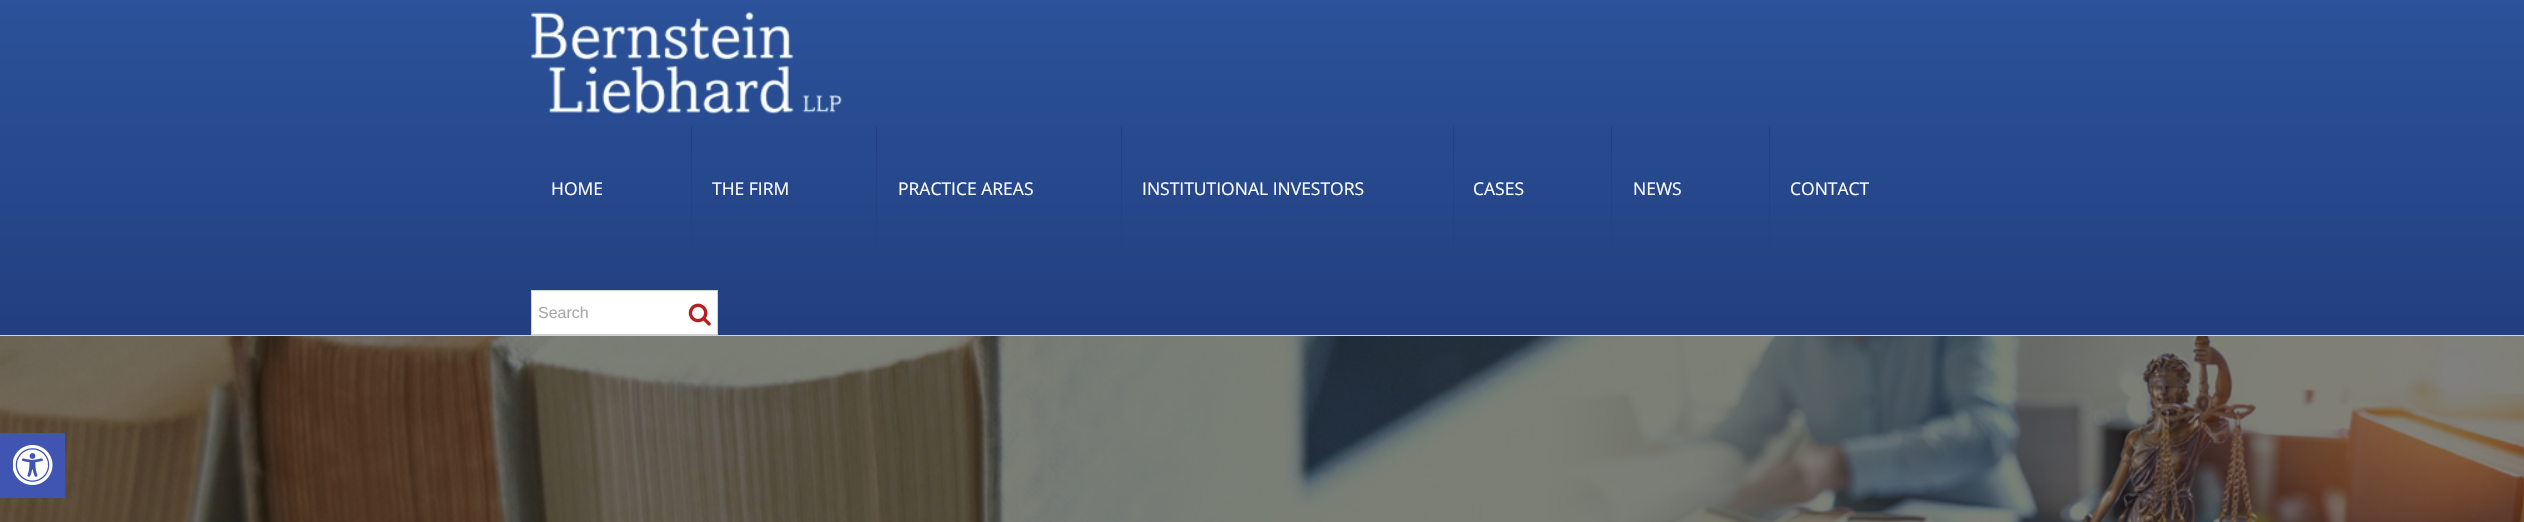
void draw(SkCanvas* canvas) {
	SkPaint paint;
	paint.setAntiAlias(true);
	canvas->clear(0xffffffff);
	{
		const SkColor colors[] = {0xff2b529a, 0xff223f80};
		const float stops[] = {0, 1};
		const SkPoint ends[] = {{1263, 0}, {1263, 335}};
		paint.setShader(SkGradientShader::MakeLinear(ends, colors, stops, 2, SkTileMode::kClamp));
		paint.setAlpha(255);
	}
	canvas->drawRect(SkRect::MakeXYWH(0, 0, 2524, 335), paint);
	canvas->drawImageRect(SkImages::DeferredFromEncodedData(SkData::MakeFromFileName("img1.png")), SkRect::MakeXYWH(531, 12, 311, 102), SkSamplingOptions());
	SkFont f1(fontMgr->matchFamilyStyle("Open Sans", SkFontStyle::Normal()), 17.5);
	f1.setSubpixel(true);
	paint.setShader(nullptr);
	paint.setColor(0xffffffff);
	canvas->drawString("HOME", 551, 195, f1, paint);
	{
		const SkColor colors[] = {0xff234082, 0xff234284};
		const float stops[] = {0, 1};
		const SkPoint ends[] = {{692, 126}, {692, 248}};
		paint.setShader(SkGradientShader::MakeLinear(ends, colors, stops, 2, SkTileMode::kClamp));
		paint.setAlpha(255);
	}
	canvas->drawRect(SkRect::MakeXYWH(691, 126, 1, 122), paint);
	paint.setShader(nullptr);
	paint.setColor(0xffffffff);
	canvas->drawString("THE FIRM", 712, 195, f1, paint);
	{
		const SkColor colors[] = {0xff234082, 0xff234284};
		const float stops[] = {0, 1};
		const SkPoint ends[] = {{877, 126}, {877, 248}};
		paint.setShader(SkGradientShader::MakeLinear(ends, colors, stops, 2, SkTileMode::kClamp));
		paint.setAlpha(255);
	}
	canvas->drawRect(SkRect::MakeXYWH(876, 126, 1, 122), paint);
	paint.setShader(nullptr);
	paint.setColor(0xffffffff);
	canvas->drawString("PRACTICE AREAS", 898, 195, f1, paint);
	{
		const SkColor colors[] = {0xff234082, 0xff234284};
		const float stops[] = {0, 1};
		const SkPoint ends[] = {{1122, 126}, {1122, 248}};
		paint.setShader(SkGradientShader::MakeLinear(ends, colors, stops, 2, SkTileMode::kClamp));
		paint.setAlpha(255);
	}
	canvas->drawRect(SkRect::MakeXYWH(1121, 126, 1, 122), paint);
	paint.setShader(nullptr);
	paint.setColor(0xffffffff);
	canvas->drawString("INSTITUTIONAL INVESTORS", 1142, 195, f1, paint);
	{
		const SkColor colors[] = {0xff234082, 0xff234284};
		const float stops[] = {0, 1};
		const SkPoint ends[] = {{1453, 126}, {1453, 248}};
		paint.setShader(SkGradientShader::MakeLinear(ends, colors, stops, 2, SkTileMode::kClamp));
		paint.setAlpha(255);
	}
	canvas->drawRect(SkRect::MakeXYWH(1453, 126, 1, 122), paint);
	paint.setShader(nullptr);
	paint.setColor(0xffffffff);
	canvas->drawString("CASES", 1473, 195, f1, paint);
	{
		const SkColor colors[] = {0xff234082, 0xff234284};
		const float stops[] = {0, 1};
		const SkPoint ends[] = {{1612, 126}, {1612, 248}};
		paint.setShader(SkGradientShader::MakeLinear(ends, colors, stops, 2, SkTileMode::kClamp));
		paint.setAlpha(255);
	}
	canvas->drawRect(SkRect::MakeXYWH(1611, 126, 1, 122), paint);
	paint.setShader(nullptr);
	paint.setColor(0xffffffff);
	canvas->drawString("NEWS", 1633, 195, f1, paint);
	{
		const SkColor colors[] = {0xff234082, 0xff234284};
		const float stops[] = {0, 1};
		const SkPoint ends[] = {{1769, 126}, {1769, 248}};
		paint.setShader(SkGradientShader::MakeLinear(ends, colors, stops, 2, SkTileMode::kClamp));
		paint.setAlpha(255);
	}
	canvas->drawRect(SkRect::MakeXYWH(1769, 126, 1, 122), paint);
	paint.setShader(nullptr);
	paint.setColor(0xffffffff);
	canvas->drawString("CONTACT", 1790, 195, f1, paint);
	canvas->drawRect(SkRect::MakeXYWH(531.5, 290.5, 186, 44), paint);
	paint.setStroke(true);
	paint.setStrokeWidth(1);
	paint.setColor(0xffd2d2d2);
	canvas->drawRect(SkRect::MakeXYWH(531.5, 290.5, 186, 44), paint);
	SkFont f2(fontMgr->matchFamilyStyle("Liberation Sans", SkFontStyle::Normal()), 16);
	f2.setSubpixel(true);
	paint.setStroke(false);
	paint.setColor(0xffaaa9a9);
	canvas->drawString("Search", 538, 318, f2, paint);
	canvas->drawImageRect(SkImages::DeferredFromEncodedData(SkData::MakeFromFileName("img2.png")), SkRect::MakeXYWH(688, 303, 23, 23), SkSamplingOptions());
	{
		const SkColor colors[] = {0xff234082, 0xff234284};
		const float stops[] = {0, 1};
		const SkPoint ends[] = {{786, 290}, {786, 335}};
		paint.setShader(SkGradientShader::MakeLinear(ends, colors, stops, 2, SkTileMode::kClamp));
		paint.setAlpha(255);
	}
	canvas->drawRect(SkRect::MakeXYWH(785, 324, 1, 11), paint);
	canvas->drawImageRect(SkImages::DeferredFromEncodedData(SkData::MakeFromFileName("img3.png")), SkRect::MakeXYWH(0, 336, 2524, 186), SkSamplingOptions());
	paint.setShader(nullptr);
	paint.setColor(0xffd2d3d4);
	canvas->drawRect(SkRect::MakeXYWH(0, 335, 2524, 1), paint);
	paint.setColor(0xff4054b2);
	canvas->drawRect(SkRect::MakeXYWH(0, 433, 65, 65), paint);
	canvas->drawImageRect(SkImages::DeferredFromEncodedData(SkData::MakeFromFileName("img4.png")), SkRect::MakeXYWH(13, 445, 40, 40), SkSamplingOptions());
}
